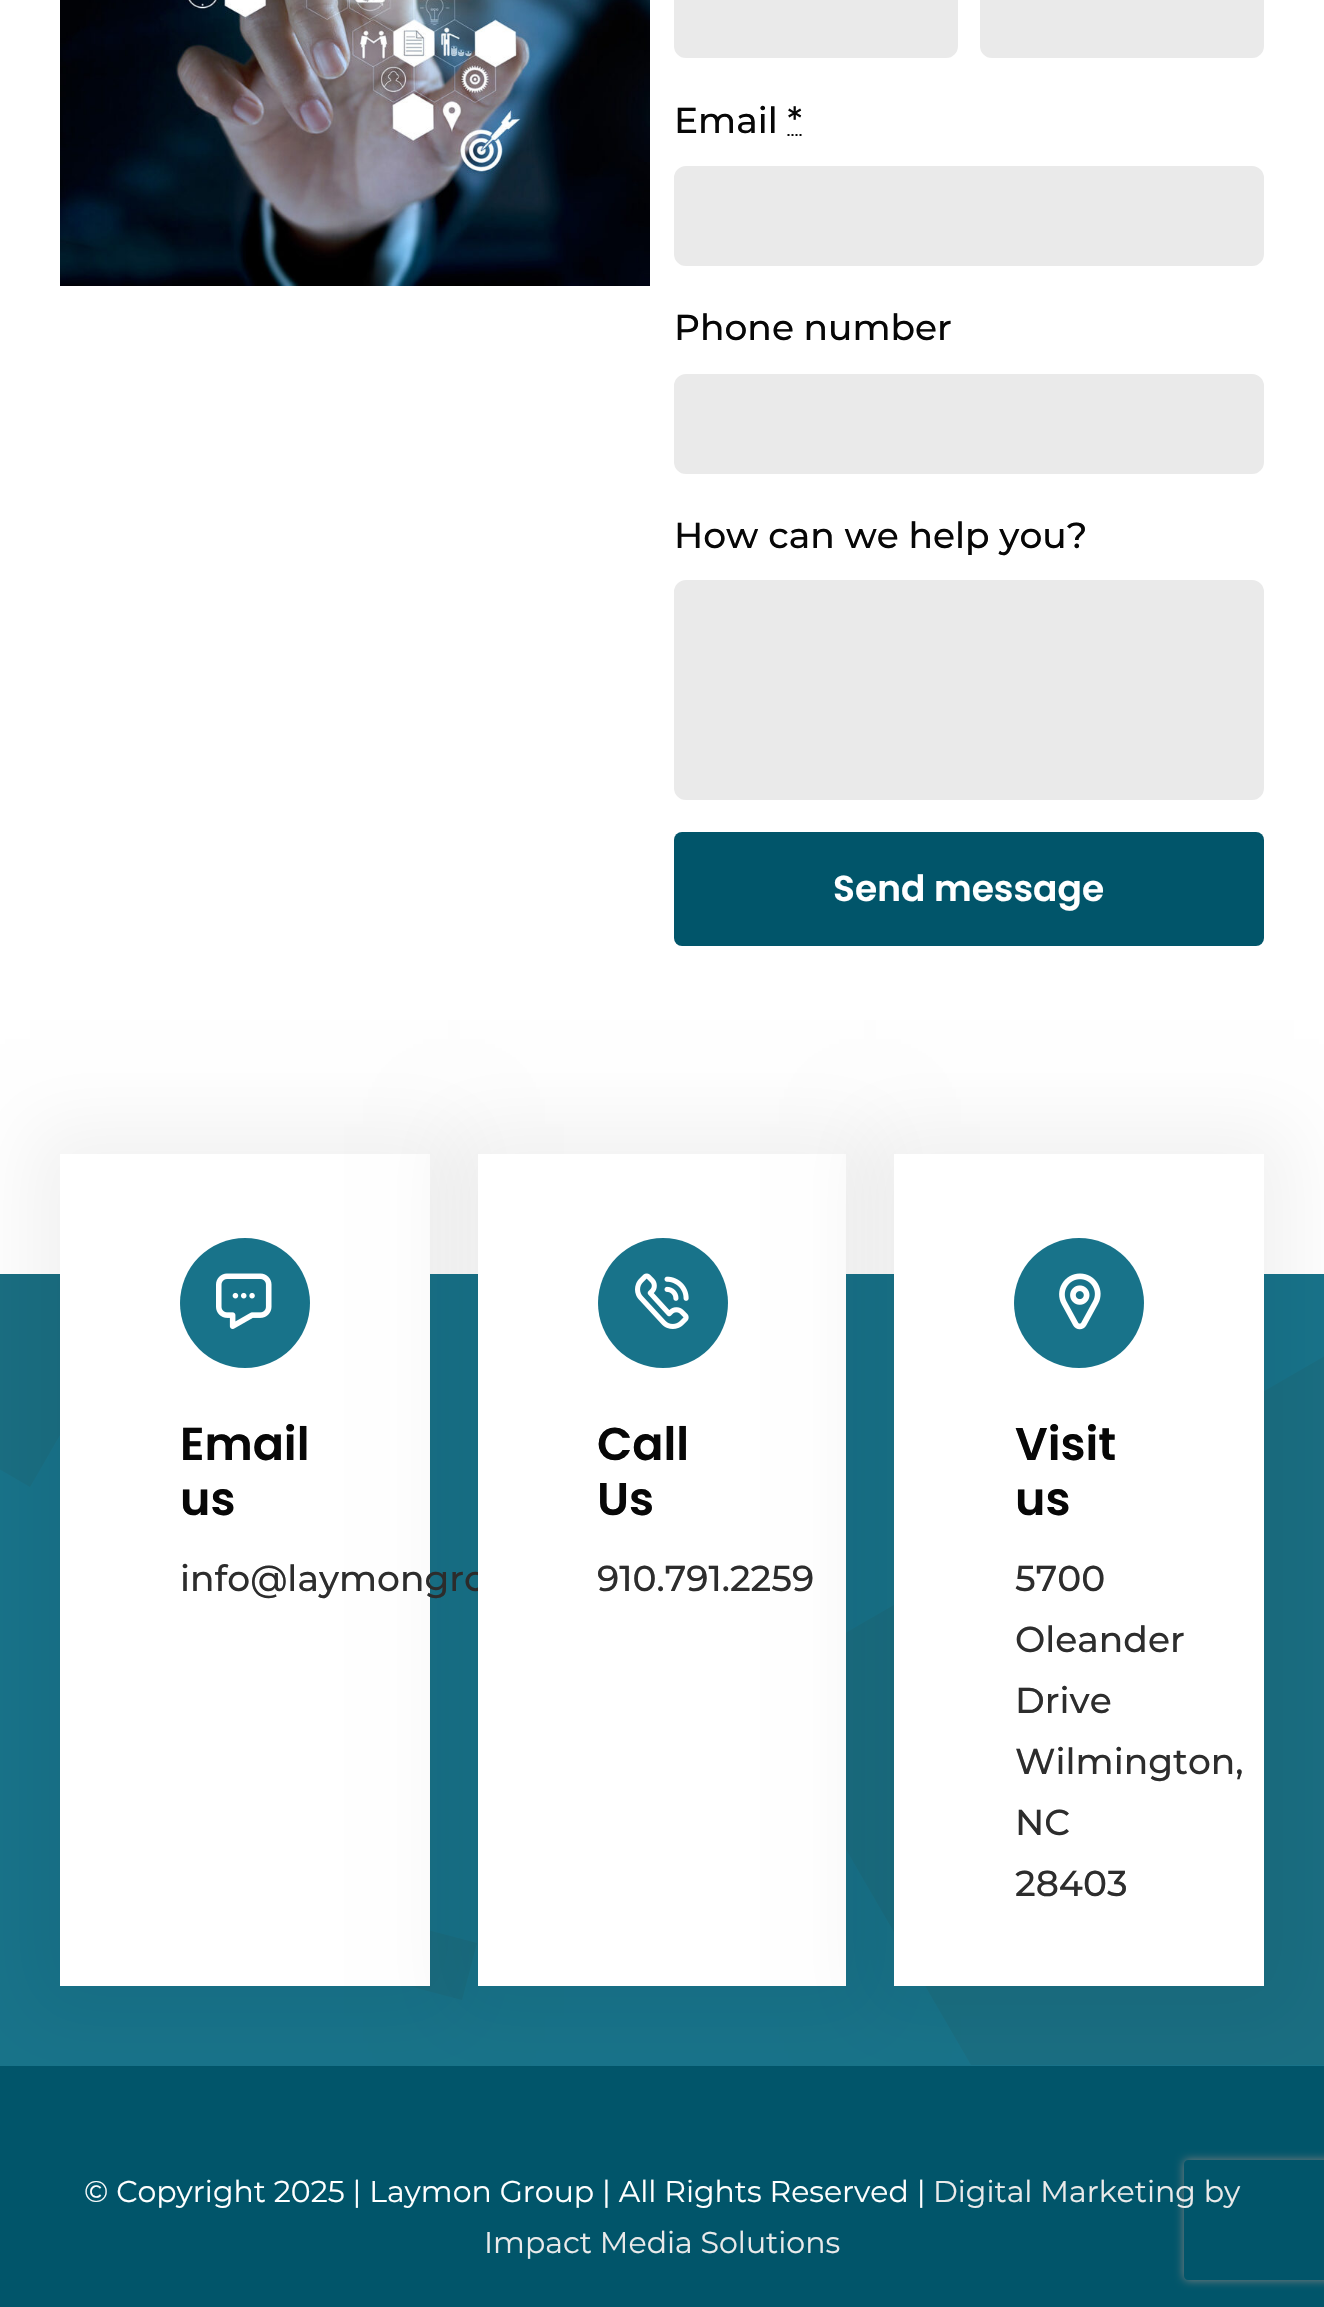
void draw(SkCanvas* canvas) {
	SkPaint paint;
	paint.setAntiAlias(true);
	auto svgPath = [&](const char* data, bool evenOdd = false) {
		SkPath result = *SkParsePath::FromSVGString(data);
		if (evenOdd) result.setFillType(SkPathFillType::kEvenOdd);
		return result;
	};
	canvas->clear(0xffffffff);
	canvas->drawImageRect(SkImages::DeferredFromEncodedData(SkData::MakeFromFileName("img1.png")), SkRect::MakeXYWH(60, 0, 590, 286), SkSamplingOptions());
	paint.setColor(0xffeaeaea);
	canvas->drawRoundRect(SkRect::MakeXYWH(675, -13, 282, 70), 11, 11, paint);
	paint.setStroke(true);
	paint.setStrokeWidth(2);
	canvas->drawRoundRect(SkRect::MakeXYWH(675, -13, 282, 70), 11, 11, paint);
	paint.setStroke(false);
	canvas->drawRoundRect(SkRect::MakeXYWH(981, -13, 282, 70), 11, 11, paint);
	paint.setStroke(true);
	canvas->drawRoundRect(SkRect::MakeXYWH(981, -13, 282, 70), 11, 11, paint);
	SkFont f1(fontMgr->matchFamilyStyle("Montserrat", SkFontStyle(500, SkFontStyle::kNormal_Width, SkFontStyle::kUpright_Slant)), 36);
	f1.setSubpixel(true);
	paint.setStroke(false);
	paint.setColor(0xff070707);
	canvas->drawString("Email *", 674, 133, f1, paint);
	paint.setStroke(true);
	paint.setPathEffect(SkDashPathEffect::Make({{2, 2}}, 0));
	canvas->drawPath(svgPath("M787.5 135H802"), paint);
	paint.setPathEffect(nullptr);
	paint.setStroke(false);
	paint.setColor(0xffeaeaea);
	canvas->drawRoundRect(SkRect::MakeXYWH(675, 167, 588, 98), 11, 11, paint);
	paint.setStroke(true);
	canvas->drawRoundRect(SkRect::MakeXYWH(675, 167, 588, 98), 11, 11, paint);
	paint.setStroke(false);
	paint.setColor(0xff070707);
	canvas->drawString("Phone number", 674, 340, f1, paint);
	paint.setColor(0xffeaeaea);
	canvas->drawRoundRect(SkRect::MakeXYWH(675, 375, 588, 98), 11, 11, paint);
	paint.setStroke(true);
	canvas->drawRoundRect(SkRect::MakeXYWH(675, 375, 588, 98), 11, 11, paint);
	paint.setStroke(false);
	paint.setColor(0xff070707);
	canvas->drawString("How can we help you?", 674, 548, f1, paint);
	paint.setColor(0xffeaeaea);
	canvas->drawRoundRect(SkRect::MakeXYWH(675, 581, 588, 218), 11, 11, paint);
	paint.setStroke(true);
	canvas->drawRoundRect(SkRect::MakeXYWH(675, 581, 588, 218), 11, 11, paint);
	paint.setStroke(false);
	paint.setColor(0xff01556a);
	canvas->drawRoundRect(SkRect::MakeXYWH(674, 832, 590, 114), 8, 8, paint);
	SkFont f2(fontMgr->matchFamilyStyle("Poppins", SkFontStyle(600, SkFontStyle::kNormal_Width, SkFontStyle::kUpright_Slant)), 36);
	f2.setSubpixel(true);
	paint.setColor(0xffffffff);
	canvas->drawString("Send message", 833, 901, f2, paint);
	paint.setColor(0xff01556a);
	canvas->drawRect(SkRect::MakeXYWH(0, 2066, 1324, 241), paint);
	canvas->save();
	canvas->clipPath(svgPath("M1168 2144H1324V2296H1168ZM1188 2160H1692C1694 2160 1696 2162 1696 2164V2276C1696 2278 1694 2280 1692 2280H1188C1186 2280 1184 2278 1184 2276V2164C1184 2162 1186 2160 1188 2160Z", true), true);
	paint.setColor(0xff808080);
	paint.setMaskFilter(SkMaskFilter::MakeBlur(kNormal_SkBlurStyle, 5));
	canvas->drawRoundRect(SkRect::MakeXYWH(1184, 2160, 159, 120), 4, 4, paint);
	paint.setMaskFilter(nullptr);
	canvas->restore();
	paint.setColor(0xff18738a);
	canvas->drawRect(SkRect::MakeXYWH(0, 1274, 1324, 792), paint);
	paint.setColor(0xff1a6e82);
	canvas->drawPath(svgPath("M-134 1274V1392L30 1487L153 1274ZM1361 1335L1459 1504V2065H971L752 1687ZM405 1985L462 2000L477 1943L420 1928Z", true), paint);
	paint.setColor(0x0d080808);
	paint.setMaskFilter(SkMaskFilter::MakeBlur(kNormal_SkBlurStyle, 35));
	canvas->drawRect(SkRect::MakeXYWH(30, 1124, 430, 892), paint);
	paint.setMaskFilter(nullptr);
	paint.setColor(0xffffffff);
	canvas->drawRect(SkRect::MakeXYWH(60, 1154, 370, 832), paint);
	paint.setColor(0xff18738a);
	canvas->drawCircle(245, 1303, 65, paint);
	canvas->drawImageRect(SkImages::DeferredFromEncodedData(SkData::MakeFromFileName("img2.png")), SkRect::MakeXYWH(216, 1273, 56, 56), SkSamplingOptions());
	SkFont f3(fontMgr->matchFamilyStyle("Poppins", SkFontStyle(600, SkFontStyle::kNormal_Width, SkFontStyle::kUpright_Slant)), 46);
	f3.setSubpixel(true);
	paint.setColor(0xff070707);
	canvas->drawString("Email", 180, 1460, f3, paint);
	canvas->drawString("us", 180, 1515, f3, paint);
	paint.setColor(0xff2d2d2d);
	canvas->drawString("info@laymongro", 180, 1591, f1, paint);
	paint.setColor(0x0d080808);
	paint.setMaskFilter(SkMaskFilter::MakeBlur(kNormal_SkBlurStyle, 35));
	canvas->drawRect(SkRect::MakeXYWH(448, 1124, 428, 892), paint);
	paint.setMaskFilter(nullptr);
	paint.setColor(0xffffffff);
	canvas->drawRect(SkRect::MakeXYWH(478, 1154, 368, 832), paint);
	paint.setColor(0xff18738a);
	canvas->drawCircle(663, 1303, 65, paint);
	canvas->drawImageRect(SkImages::DeferredFromEncodedData(SkData::MakeFromFileName("img3.png")), SkRect::MakeXYWH(635, 1273, 54, 56), SkSamplingOptions());
	paint.setColor(0xff070707);
	canvas->drawString("Call", 597, 1460, f3, paint);
	canvas->drawString("Us", 597, 1515, f3, paint);
	paint.setColor(0xff2d2d2d);
	canvas->drawString("910.791.2259", 597, 1591, f1, paint);
	paint.setColor(0x0d080808);
	paint.setMaskFilter(SkMaskFilter::MakeBlur(kNormal_SkBlurStyle, 35));
	canvas->drawRect(SkRect::MakeXYWH(864, 1124, 430, 892), paint);
	paint.setMaskFilter(nullptr);
	paint.setColor(0xffffffff);
	canvas->drawRect(SkRect::MakeXYWH(894, 1154, 370, 832), paint);
	paint.setColor(0xff18738a);
	canvas->drawCircle(1079, 1303, 65, paint);
	canvas->drawImageRect(SkImages::DeferredFromEncodedData(SkData::MakeFromFileName("img4.png")), SkRect::MakeXYWH(1059, 1273, 42, 57), SkSamplingOptions());
	paint.setColor(0xff070707);
	canvas->drawString("Visit", 1015, 1460, f3, paint);
	canvas->drawString("us", 1015, 1515, f3, paint);
	paint.setColor(0xff2d2d2d);
	canvas->drawString("5700", 1015, 1591, f1, paint);
	canvas->drawString("Oleander", 1015, 1652, f1, paint);
	canvas->drawString("Drive", 1015, 1713, f1, paint);
	canvas->drawString("Wilmington,", 1015, 1774, f1, paint);
	canvas->drawString("NC", 1015, 1835, f1, paint);
	canvas->drawString("28403", 1015, 1896, f1, paint);
	SkFont f4(fontMgr->matchFamilyStyle("Montserrat", SkFontStyle::Normal()), 30);
	f4.setSubpixel(true);
	paint.setColor(0xffffffff);
	canvas->drawString("© Copyright 2025 | Laymon Group | All Rights Reserved |", 84, 2202, f4, paint);
	paint.setColor(0xffeaeaea);
	canvas->drawString("Digital Marketing by", 933, 2202, f4, paint);
	canvas->drawString("Impact Media Solutions", 484, 2253, f4, paint);
}
